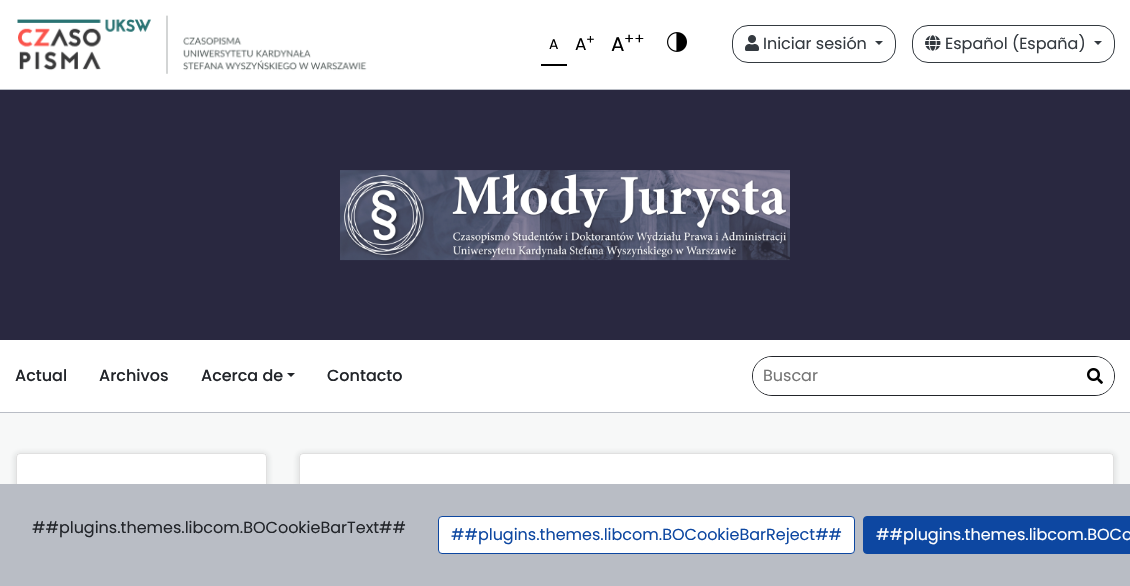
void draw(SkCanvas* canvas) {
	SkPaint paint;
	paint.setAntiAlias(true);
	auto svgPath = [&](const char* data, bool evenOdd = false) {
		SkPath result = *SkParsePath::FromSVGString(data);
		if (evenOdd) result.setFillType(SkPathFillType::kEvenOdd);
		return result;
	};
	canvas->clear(0xfff7f8f8);
	paint.setColor(0xffffffff);
	canvas->drawRect(SkRect::MakeXYWH(0, 0, 1130, 89), paint);
	paint.setColor(0xffb9bdc5);
	canvas->drawRect(SkRect::MakeXYWH(0, 89, 1130, 1), paint);
	canvas->drawImageRect(SkImages::DeferredFromEncodedData(SkData::MakeFromFileName("img1.png")), SkRect::MakeXYWH(17, 15, 350, 59), SkSamplingOptions());
	paint.setColor(0xff000000);
	canvas->drawRect(SkRect::MakeXYWH(541, 64, 26, 2), paint);
	SkFont f1(fontMgr->matchFamilyStyle("Poppins", SkFontStyle::Normal()), 14);
	f1.setSubpixel(true);
	canvas->drawString("A", 549, 49, f1, paint);
	SkFont f2(fontMgr->matchFamilyStyle("Poppins", SkFontStyle::Normal()), 17);
	f2.setSubpixel(true);
	canvas->drawString("A", 575, 50, f2, paint);
	SkFont f3(fontMgr->matchFamilyStyle("Poppins", SkFontStyle::Normal()), 13);
	f3.setSubpixel(true);
	canvas->drawString("+", 586, 44, f3, paint);
	SkFont f4(fontMgr->matchFamilyStyle("Poppins", SkFontStyle::Normal()), 20);
	f4.setSubpixel(true);
	canvas->drawString("A", 611, 51, f4, paint);
	SkFont f5(fontMgr->matchFamilyStyle("Poppins", SkFontStyle::Normal()), 15);
	f5.setSubpixel(true);
	canvas->drawString("++", 624, 44, f5, paint);
	canvas->drawImageRect(SkImages::DeferredFromEncodedData(SkData::MakeFromFileName("img2.png")), SkRect::MakeXYWH(667, 32, 20, 20), SkSamplingOptions());
	paint.setStroke(true);
	paint.setStrokeWidth(1);
	paint.setColor(0xff343a40);
	canvas->drawRoundRect(SkRect::MakeXYWH(732.5, 25.5, 163, 37), 15.5, 15.5, paint);
	canvas->drawImageRect(SkImages::DeferredFromEncodedData(SkData::MakeFromFileName("img3.png")), SkRect::MakeXYWH(745, 35, 14, 16), SkSamplingOptions());
	SkFont f6(fontMgr->matchFamilyStyle("Poppins", SkFontStyle::Normal()), 16);
	f6.setSubpixel(true);
	paint.setStroke(false);
	canvas->drawString("Iniciar sesión", 763, 49, f6, paint);
	canvas->drawPath(svgPath("M875 41H883L879 45Z"), paint);
	paint.setStroke(true);
	canvas->drawRoundRect(SkRect::MakeXYWH(912.5, 25.5, 202, 37), 15.5, 15.5, paint);
	canvas->drawImageRect(SkImages::DeferredFromEncodedData(SkData::MakeFromFileName("img4.png")), SkRect::MakeXYWH(925, 35, 16, 16), SkSamplingOptions());
	paint.setStroke(false);
	canvas->drawString("Español (España)", 945, 49, f6, paint);
	canvas->drawPath(svgPath("M1094 41H1102L1098 45Z"), paint);
	paint.setColor(0xff292840);
	canvas->drawRect(SkRect::MakeXYWH(0, 90, 1130, 250), paint);
	canvas->drawImageRect(SkImages::DeferredFromEncodedData(SkData::MakeFromFileName("img5.png")), SkRect::MakeXYWH(340, 170, 450, 91), SkSamplingOptions());
	paint.setColor(0xffffffff);
	canvas->drawRect(SkRect::MakeXYWH(0, 340, 1130, 72), paint);
	paint.setColor(0xffb9bdc5);
	canvas->drawRect(SkRect::MakeXYWH(0, 412, 1130, 1), paint);
	SkFont f7(fontMgr->matchFamilyStyle("Poppins", SkFontStyle(500, SkFontStyle::kNormal_Width, SkFontStyle::kUpright_Slant)), 16);
	f7.setSubpixel(true);
	paint.setColor(0xff22252a);
	canvas->drawString("Actual", 15, 381, f7, paint);
	canvas->drawString("Archivos", 99, 381, f7, paint);
	canvas->drawString("Acerca de", 201, 381, f7, paint);
	canvas->drawPath(svgPath("M287 373H295L291 377Z"), paint);
	canvas->drawString("Contacto", 327, 381, f7, paint);
	paint.setStroke(true);
	canvas->drawRoundRect(SkRect::MakeXYWH(752.5, 356.5, 362, 39), 19.5, 19.5, paint);
	paint.setStroke(false);
	paint.setColor(0xffffffff);
	canvas->drawRoundRect(SkRect::MakeXYWH(753, 357, 361, 38), 19, 19, paint);
	paint.setColor(0xff757575);
	canvas->drawString("Buscar", 763, 381, f6, paint);
	canvas->drawImageRect(SkImages::DeferredFromEncodedData(SkData::MakeFromFileName("img6.png")), SkRect::MakeXYWH(1087, 368, 16, 16), SkSamplingOptions());
	paint.setColor(0x1a22252a);
	paint.setMaskFilter(SkMaskFilter::MakeBlur(kNormal_SkBlurStyle, 2.5));
	canvas->drawRoundRect(SkRect::MakeXYWH(14, 452, 255, 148), 6, 6, paint);
	paint.setMaskFilter(nullptr);
	paint.setColor(0xffffffff);
	canvas->drawRoundRect(SkRect::MakeXYWH(16, 453, 251, 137), 4, 4, paint);
	paint.setStroke(true);
	paint.setColor(0x1f000000);
	canvas->drawRoundRect(SkRect::MakeXYWH(16.5, 453.5, 250, 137), 3.5, 3.5, paint);
	paint.setStroke(false);
	paint.setColor(0x1a22252a);
	paint.setMaskFilter(SkMaskFilter::MakeBlur(kNormal_SkBlurStyle, 2.5));
	canvas->drawRoundRect(SkRect::MakeXYWH(297, 452, 819, 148), 6, 6, paint);
	paint.setMaskFilter(nullptr);
	paint.setColor(0xffffffff);
	canvas->drawRoundRect(SkRect::MakeXYWH(299, 453, 815, 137), 4, 4, paint);
	paint.setStroke(true);
	paint.setColor(0x1f000000);
	canvas->drawRoundRect(SkRect::MakeXYWH(299.5, 453.5, 814, 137), 3.5, 3.5, paint);
	paint.setStroke(false);
	paint.setColor(0xffb9bdc5);
	canvas->drawRect(SkRect::MakeXYWH(0, 484, 1130, 102), paint);
	paint.setColor(0xff22252a);
	canvas->drawString("##plugins.themes.libcom.BOCookieBarText##", 32, 533, f6, paint);
	paint.setColor(0xffffffff);
	canvas->drawRoundRect(SkRect::MakeXYWH(438.5, 516.5, 416, 37), 3.5, 3.5, paint);
	paint.setStroke(true);
	paint.setColor(0xff0d47a1);
	canvas->drawRoundRect(SkRect::MakeXYWH(438.5, 516.5, 416, 37), 3.5, 3.5, paint);
	paint.setStroke(false);
	canvas->drawString("##plugins.themes.libcom.BOCookieBarReject##", 451, 540, f6, paint);
	canvas->drawRoundRect(SkRect::MakeXYWH(863.5, 516.5, 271, 37), 3.5, 3.5, paint);
	paint.setStroke(true);
	canvas->drawRoundRect(SkRect::MakeXYWH(863.5, 516.5, 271, 37), 3.5, 3.5, paint);
	paint.setStroke(false);
	paint.setColor(0xffffffff);
	canvas->drawString("##plugins.themes.libcom.BOCo", 876, 540, f6, paint);
}
